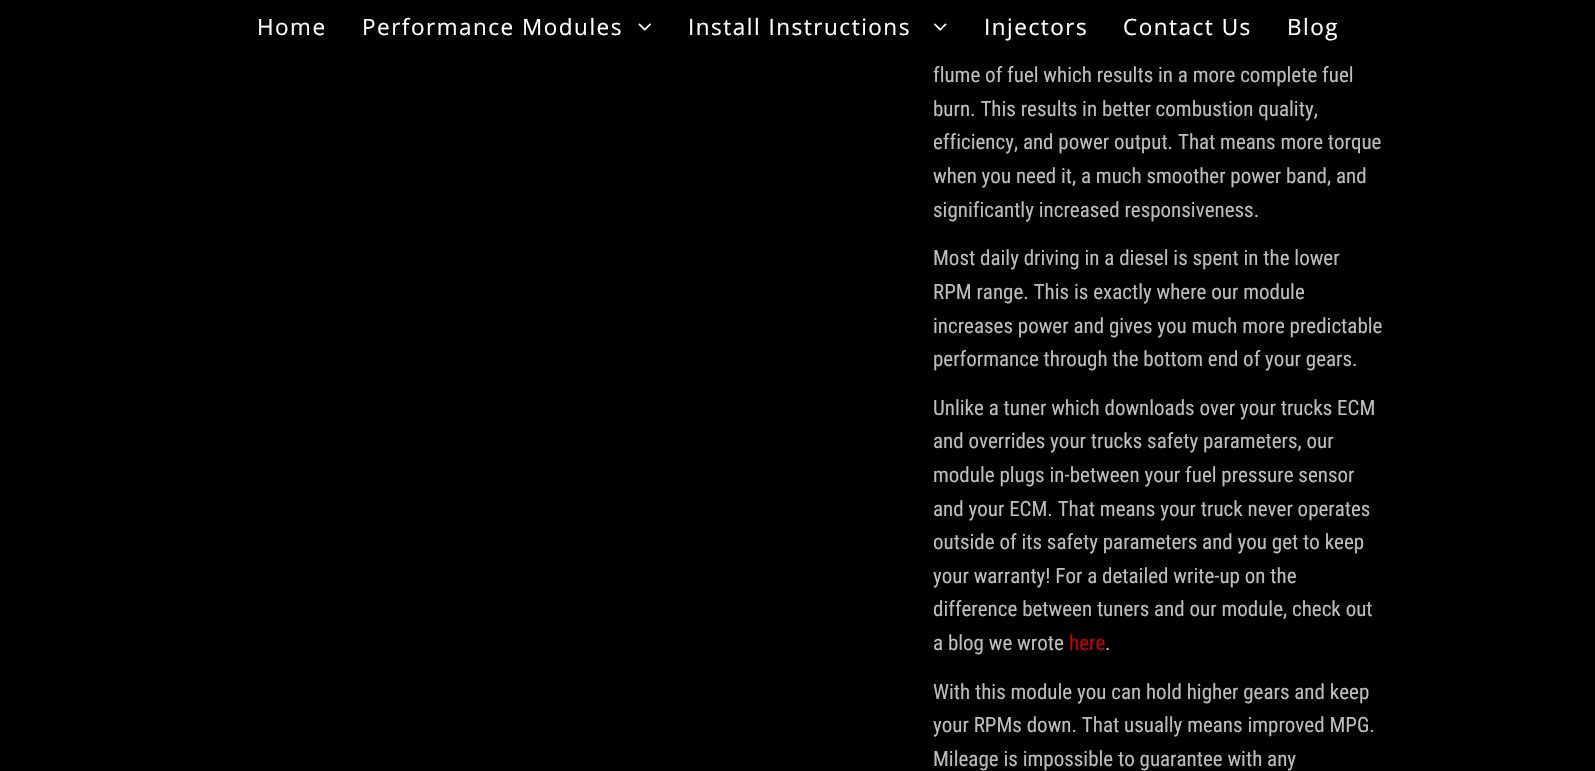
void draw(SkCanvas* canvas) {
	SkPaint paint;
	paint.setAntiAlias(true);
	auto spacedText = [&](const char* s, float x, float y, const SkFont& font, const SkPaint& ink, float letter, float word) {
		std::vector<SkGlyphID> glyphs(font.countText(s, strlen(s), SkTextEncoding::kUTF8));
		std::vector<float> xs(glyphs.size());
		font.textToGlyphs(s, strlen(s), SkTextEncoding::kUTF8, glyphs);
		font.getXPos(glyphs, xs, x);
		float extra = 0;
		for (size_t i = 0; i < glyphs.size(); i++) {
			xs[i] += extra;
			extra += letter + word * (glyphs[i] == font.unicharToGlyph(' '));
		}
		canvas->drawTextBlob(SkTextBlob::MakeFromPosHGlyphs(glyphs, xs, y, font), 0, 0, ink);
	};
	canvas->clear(0xff000000);
	SkFont f1(fontMgr->matchFamilyStyle("Open Sans", SkFontStyle::Normal()), 22.5);
	f1.setSubpixel(true);
	paint.setColor(0xffffffff);
	spacedText("Home", 257, 35, f1, paint, 1.5, 0);
	spacedText("Performance Modules", 362, 35, f1, paint, 1.5, 0);
	canvas->drawImageRect(SkImages::DeferredFromEncodedData(SkData::MakeFromFileName("img1.png")), SkRect::MakeXYWH(638, 23, 13, 8), SkSamplingOptions());
	spacedText("Install Instructions", 688, 35, f1, paint, 1.5, 0);
	canvas->drawImageRect(SkImages::DeferredFromEncodedData(SkData::MakeFromFileName("img2.png")), SkRect::MakeXYWH(934, 23, 13, 8), SkSamplingOptions());
	spacedText("Injectors", 984, 35, f1, paint, 1.5, 0);
	spacedText("Contact Us", 1123, 35, f1, paint, 1.5, 0);
	spacedText("Blog", 1287, 35, f1, paint, 1.5, 0);
	SkFont f2(fontMgr->matchFamilyStyle("Roboto Condensed", SkFontStyle::Normal()), 21);
	f2.setSubpixel(true);
	paint.setColor(0xffbdbdbd);
	canvas->drawString("flume of fuel which results in a more complete fuel", 933, 82, f2, paint);
	canvas->drawString("burn. This results in better combustion quality,", 933, 116, f2, paint);
	canvas->drawString("efficiency, and power output. That means more torque", 933, 149, f2, paint);
	canvas->drawString("when you need it, a much smoother power band, and", 933, 183, f2, paint);
	canvas->drawString("significantly increased responsiveness.", 933, 217, f2, paint);
	canvas->drawString("Most daily driving in a diesel is spent in the lower", 933, 265, f2, paint);
	canvas->drawString("RPM range. This is exactly where our module", 933, 299, f2, paint);
	canvas->drawString("increases power and gives you much more predictable", 933, 333, f2, paint);
	canvas->drawString("performance through the bottom end of your gears.", 933, 366, f2, paint);
	canvas->drawString("Unlike a tuner which downloads over your trucks ECM", 933, 415, f2, paint);
	canvas->drawString("and overrides your trucks safety parameters, our", 933, 448, f2, paint);
	canvas->drawString("module plugs in-between your fuel pressure sensor", 933, 482, f2, paint);
	canvas->drawString("and your ECM. That means your truck never operates", 933, 516, f2, paint);
	canvas->drawString("outside of its safety parameters and you get to keep", 933, 549, f2, paint);
	canvas->drawString("your warranty! For a detailed write-up on the", 933, 583, f2, paint);
	canvas->drawString("difference between tuners and our module, check out", 933, 616, f2, paint);
	canvas->drawString("a blog we wrote", 933, 650, f2, paint);
	paint.setColor(0xffc40000);
	canvas->drawString("here", 1069, 650, f2, paint);
	paint.setColor(0xffbdbdbd);
	canvas->drawString(".", 1105, 650, f2, paint);
	canvas->drawString("With this module you can hold higher gears and keep", 933, 699, f2, paint);
	canvas->drawString("your RPMs down. That usually means improved MPG.", 933, 732, f2, paint);
	canvas->drawString("Mileage is impossible to guarantee with any", 933, 766, f2, paint);
}
